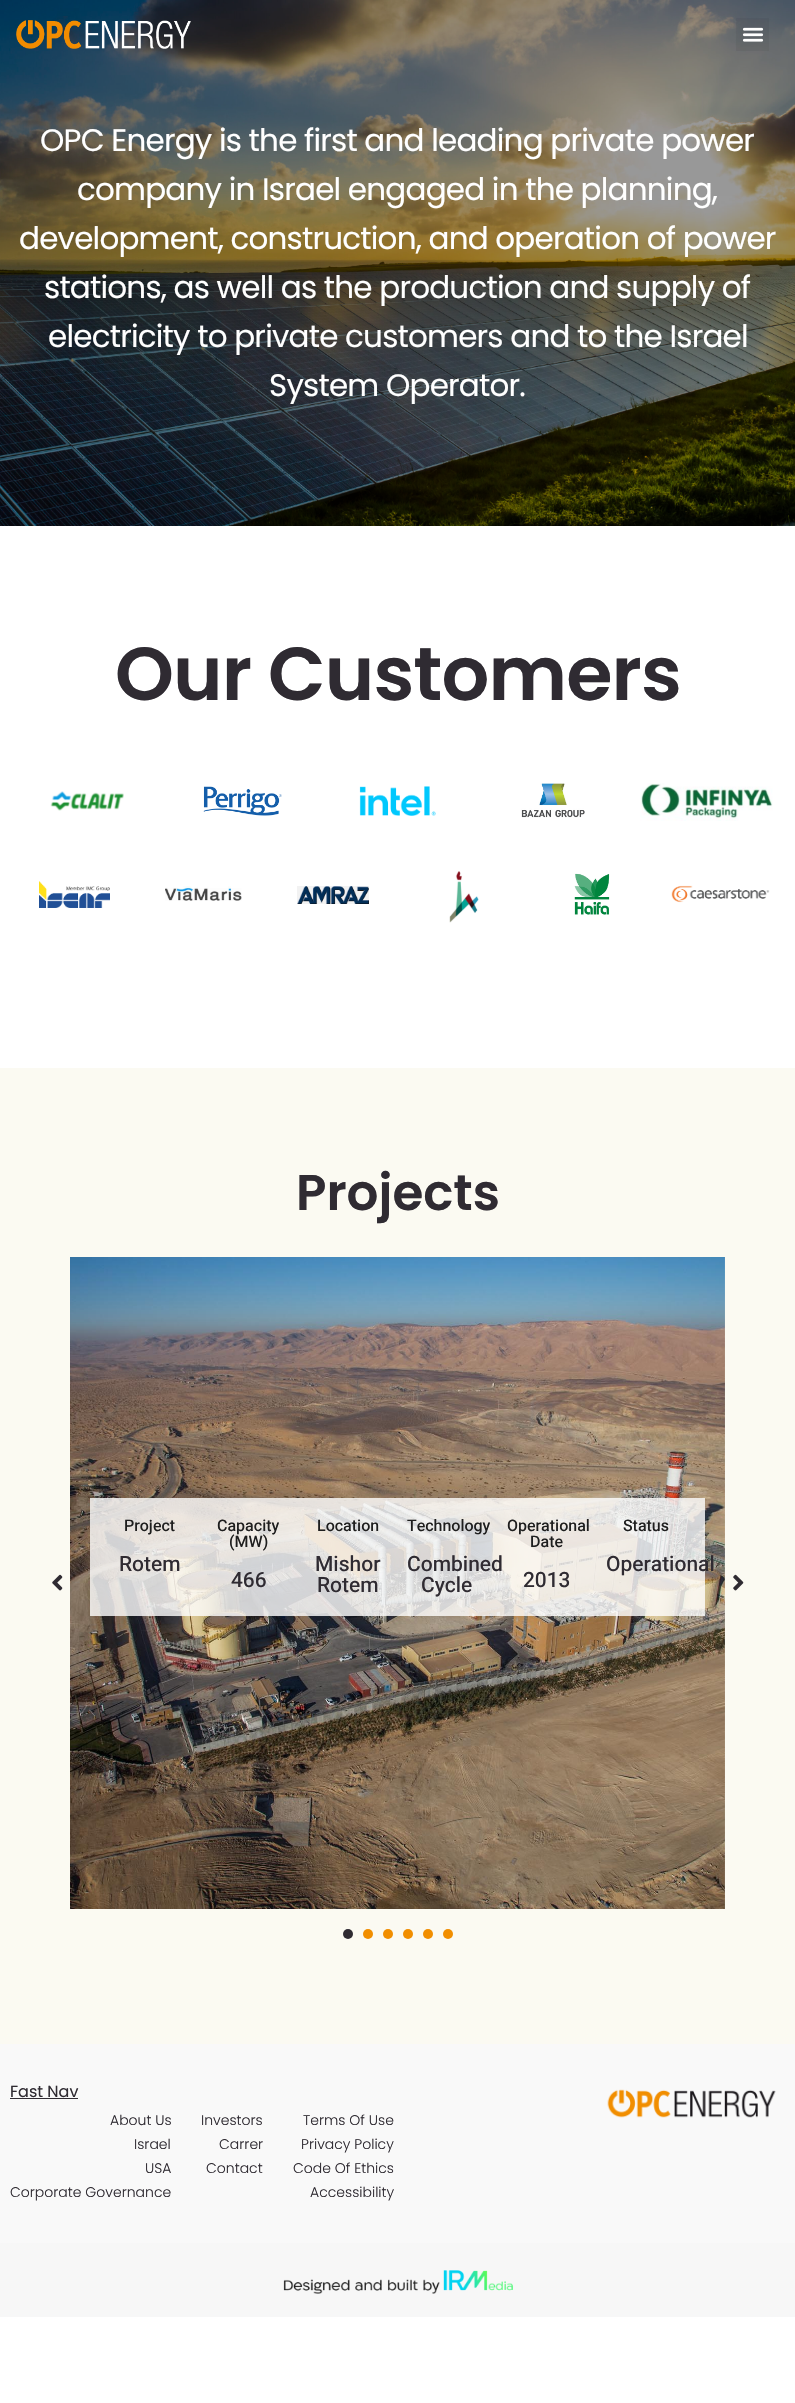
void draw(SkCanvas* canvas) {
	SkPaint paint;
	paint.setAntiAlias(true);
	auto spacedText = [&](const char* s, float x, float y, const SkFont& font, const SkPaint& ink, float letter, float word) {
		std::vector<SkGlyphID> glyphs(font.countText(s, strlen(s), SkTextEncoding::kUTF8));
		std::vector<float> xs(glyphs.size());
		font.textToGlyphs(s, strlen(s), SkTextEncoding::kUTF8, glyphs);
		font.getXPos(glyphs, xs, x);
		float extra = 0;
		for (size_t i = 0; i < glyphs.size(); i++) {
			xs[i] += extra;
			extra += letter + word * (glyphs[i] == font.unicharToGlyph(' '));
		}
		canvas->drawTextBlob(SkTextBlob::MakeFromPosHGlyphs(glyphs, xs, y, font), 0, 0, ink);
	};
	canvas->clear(0xffffffff);
	canvas->drawImageRect(SkImages::DeferredFromEncodedData(SkData::MakeFromFileName("img3.png")), SkRect::MakeXYWH(0, 0, 795, 526), SkSamplingOptions());
	canvas->drawImageRect(SkImages::DeferredFromEncodedData(SkData::MakeFromFileName("img1.png")), SkRect::MakeXYWH(16, 20, 175, 29), SkSamplingOptions());
	paint.setColor(0x0d000000);
	canvas->drawRect(SkRect::MakeXYWH(736, 18, 33, 33), paint);
	canvas->drawImageRect(SkImages::DeferredFromEncodedData(SkData::MakeFromFileName("img2.png")), SkRect::MakeXYWH(742, 27, 22, 15), SkSamplingOptions());
	SkFont f1(fontMgr->matchFamilyStyle("Poppins", SkFontStyle::Normal()), 31);
	f1.setSubpixel(true);
	paint.setColor(0xffffffff);
	spacedText("OPC Energy is the first and leading private power", 40, 151, f1, paint, -0.8, 0);
	spacedText("company in Israel engaged in the planning,", 77, 200, f1, paint, -0.8, 0);
	spacedText("development, construction, and operation of power", 19, 249, f1, paint, -0.8, 0);
	spacedText("stations, as well as the production and supply of", 44, 298, f1, paint, -0.8, 0);
	spacedText("electricity to private customers and to the Israel", 48, 347, f1, paint, -0.8, 0);
	spacedText("System Operator.", 269, 396, f1, paint, -0.8, 0);
	SkFont f2(fontMgr->matchFamilyStyle("Poppins", SkFontStyle(600, SkFontStyle::kNormal_Width, SkFontStyle::kUpright_Slant)), 75);
	f2.setSubpixel(true);
	paint.setColor(0xff2f2b32);
	spacedText("Our Customers", 115, 700, f2, paint, -0.9, 0);
	canvas->drawImageRect(SkImages::DeferredFromEncodedData(SkData::MakeFromFileName("img4.png")), SkRect::MakeXYWH(50, 791, 74, 20), SkSamplingOptions());
	canvas->drawImageRect(SkImages::DeferredFromEncodedData(SkData::MakeFromFileName("img5.png")), SkRect::MakeXYWH(203, 786, 79, 30), SkSamplingOptions());
	canvas->drawImageRect(SkImages::DeferredFromEncodedData(SkData::MakeFromFileName("img6.png")), SkRect::MakeXYWH(359, 786, 77, 30), SkSamplingOptions());
	canvas->drawImageRect(SkImages::DeferredFromEncodedData(SkData::MakeFromFileName("img7.png")), SkRect::MakeXYWH(521, 783, 64, 35), SkSamplingOptions());
	canvas->drawImageRect(SkImages::DeferredFromEncodedData(SkData::MakeFromFileName("img8.png")), SkRect::MakeXYWH(640, 783, 133, 38), SkSamplingOptions());
	canvas->drawImageRect(SkImages::DeferredFromEncodedData(SkData::MakeFromFileName("img9.png")), SkRect::MakeXYWH(39, 881, 71, 27), SkSamplingOptions());
	canvas->drawImageRect(SkImages::DeferredFromEncodedData(SkData::MakeFromFileName("img10.png")), SkRect::MakeXYWH(165, 886, 77, 15), SkSamplingOptions());
	canvas->drawImageRect(SkImages::DeferredFromEncodedData(SkData::MakeFromFileName("img11.png")), SkRect::MakeXYWH(297, 886, 72, 18), SkSamplingOptions());
	canvas->drawImageRect(SkImages::DeferredFromEncodedData(SkData::MakeFromFileName("img12.png")), SkRect::MakeXYWH(449, 871, 30, 52), SkSamplingOptions());
	canvas->drawImageRect(SkImages::DeferredFromEncodedData(SkData::MakeFromFileName("img13.png")), SkRect::MakeXYWH(574, 873, 36, 42), SkSamplingOptions());
	canvas->drawImageRect(SkImages::DeferredFromEncodedData(SkData::MakeFromFileName("img14.png")), SkRect::MakeXYWH(671, 885, 99, 18), SkSamplingOptions());
	paint.setColor(0xfffbfaf2);
	canvas->drawRect(SkRect::MakeXYWH(0, 1068, 795, 976), paint);
	SkFont f3(fontMgr->matchFamilyStyle("Poppins", SkFontStyle(600, SkFontStyle::kNormal_Width, SkFontStyle::kUpright_Slant)), 50);
	f3.setSubpixel(true);
	paint.setColor(0xff2f2b32);
	canvas->drawString("Projects", 296, 1210, f3, paint);
	canvas->drawImageRect(SkImages::DeferredFromEncodedData(SkData::MakeFromFileName("img15.png")), SkRect::MakeXYWH(52, 1574, 11, 17), SkSamplingOptions());
	canvas->drawImageRect(SkImages::DeferredFromEncodedData(SkData::MakeFromFileName("img16.png")), SkRect::MakeXYWH(70, 1257, 655, 652), SkSamplingOptions());
	paint.setColor(0xccffffff);
	canvas->drawRect(SkRect::MakeXYWH(90, 1498, 615, 118), paint);
	SkFont f4(fontMgr->matchFamilyStyle("Heebo", SkFontStyle(500, SkFontStyle::kNormal_Width, SkFontStyle::kUpright_Slant)), 16);
	f4.setSubpixel(true);
	paint.setColor(0xff1e1e1e);
	canvas->drawString("Project", 124, 1531, f4, paint);
	SkFont f5(fontMgr->matchFamilyStyle("Heebo", SkFontStyle(500, SkFontStyle::kNormal_Width, SkFontStyle::kUpright_Slant)), 21);
	f5.setSubpixel(true);
	paint.setColor(0xff2f2b32);
	canvas->drawString("Rotem", 119, 1571, f5, paint);
	paint.setColor(0xff1e1e1e);
	canvas->drawString("Capacity", 217, 1531, f4, paint);
	canvas->drawString("(MW)", 229, 1547, f4, paint);
	paint.setColor(0xff2f2b32);
	canvas->drawString("466", 231, 1587, f5, paint);
	paint.setColor(0xff1e1e1e);
	canvas->drawString("Location", 317, 1531, f4, paint);
	paint.setColor(0xff2f2b32);
	canvas->drawString("Mishor", 315, 1571, f5, paint);
	canvas->drawString("Rotem", 317, 1592, f5, paint);
	paint.setColor(0xff1e1e1e);
	canvas->drawString("Technology", 407, 1531, f4, paint);
	paint.setColor(0xff2f2b32);
	canvas->drawString("Combined", 407, 1571, f5, paint);
	canvas->drawString("Cycle", 421, 1592, f5, paint);
	paint.setColor(0xff1e1e1e);
	canvas->drawString("Operational", 507, 1531, f4, paint);
	canvas->drawString("Date", 530, 1547, f4, paint);
	paint.setColor(0xff2f2b32);
	canvas->drawString("2013", 523, 1587, f5, paint);
	paint.setColor(0xff1e1e1e);
	canvas->drawString("Status", 623, 1531, f4, paint);
	paint.setColor(0xff2f2b32);
	canvas->drawString("Operational", 606, 1571, f5, paint);
	canvas->drawCircle(348, 1934, 5, paint);
	paint.setColor(0xfff18e00);
	canvas->drawCircle(368, 1934, 5, paint);
	canvas->drawCircle(388, 1934, 5, paint);
	canvas->drawCircle(408, 1934, 5, paint);
	canvas->drawCircle(428, 1934, 5, paint);
	canvas->drawCircle(448, 1934, 5, paint);
	canvas->drawImageRect(SkImages::DeferredFromEncodedData(SkData::MakeFromFileName("img17.png")), SkRect::MakeXYWH(733, 1574, 11, 17), SkSamplingOptions());
	paint.setColor(0xfff9f9f9);
	canvas->drawRect(SkRect::MakeXYWH(0, 2044, 795, 199), paint);
	SkFont f6(fontMgr->matchFamilyStyle("Poppins", SkFontStyle::Normal()), 16);
	f6.setSubpixel(true);
	paint.setColor(0xff2f2b32);
	canvas->drawString("Fast Nav", 10, 2097, f6, paint);
	canvas->drawRect(SkRect::MakeXYWH(10, 2098, 68, 1), paint);
	SkFont f7(fontMgr->matchFamilyStyle("Poppins", SkFontStyle(300, SkFontStyle::kNormal_Width, SkFontStyle::kUpright_Slant)), 14);
	f7.setSubpixel(true);
	canvas->drawString("About Us", 110, 2125, f7, paint);
	canvas->drawString("Israel", 134, 2149, f7, paint);
	canvas->drawString("USA", 145, 2173, f7, paint);
	canvas->drawString("Corporate Governance", 10, 2197, f7, paint);
	canvas->drawString("Investors", 201, 2125, f7, paint);
	canvas->drawString("Carrer", 219, 2149, f7, paint);
	canvas->drawString("Contact", 206, 2173, f7, paint);
	canvas->drawString("Terms Of Use", 303, 2125, f7, paint);
	canvas->drawString("Privacy Policy", 301, 2149, f7, paint);
	canvas->drawString("Code Of Ethics", 293, 2173, f7, paint);
	canvas->drawString("Accessibility", 310, 2197, f7, paint);
	canvas->drawImageRect(SkImages::DeferredFromEncodedData(SkData::MakeFromFileName("img18.png")), SkRect::MakeXYWH(607, 2089, 169, 29), SkSamplingOptions());
	paint.setColor(0xfff7f7f7);
	canvas->drawRect(SkRect::MakeXYWH(0, 2243, 795, 74), paint);
	canvas->drawImageRect(SkImages::DeferredFromEncodedData(SkData::MakeFromFileName("img19.png")), SkRect::MakeXYWH(283, 2270, 230, 24), SkSamplingOptions());
}
